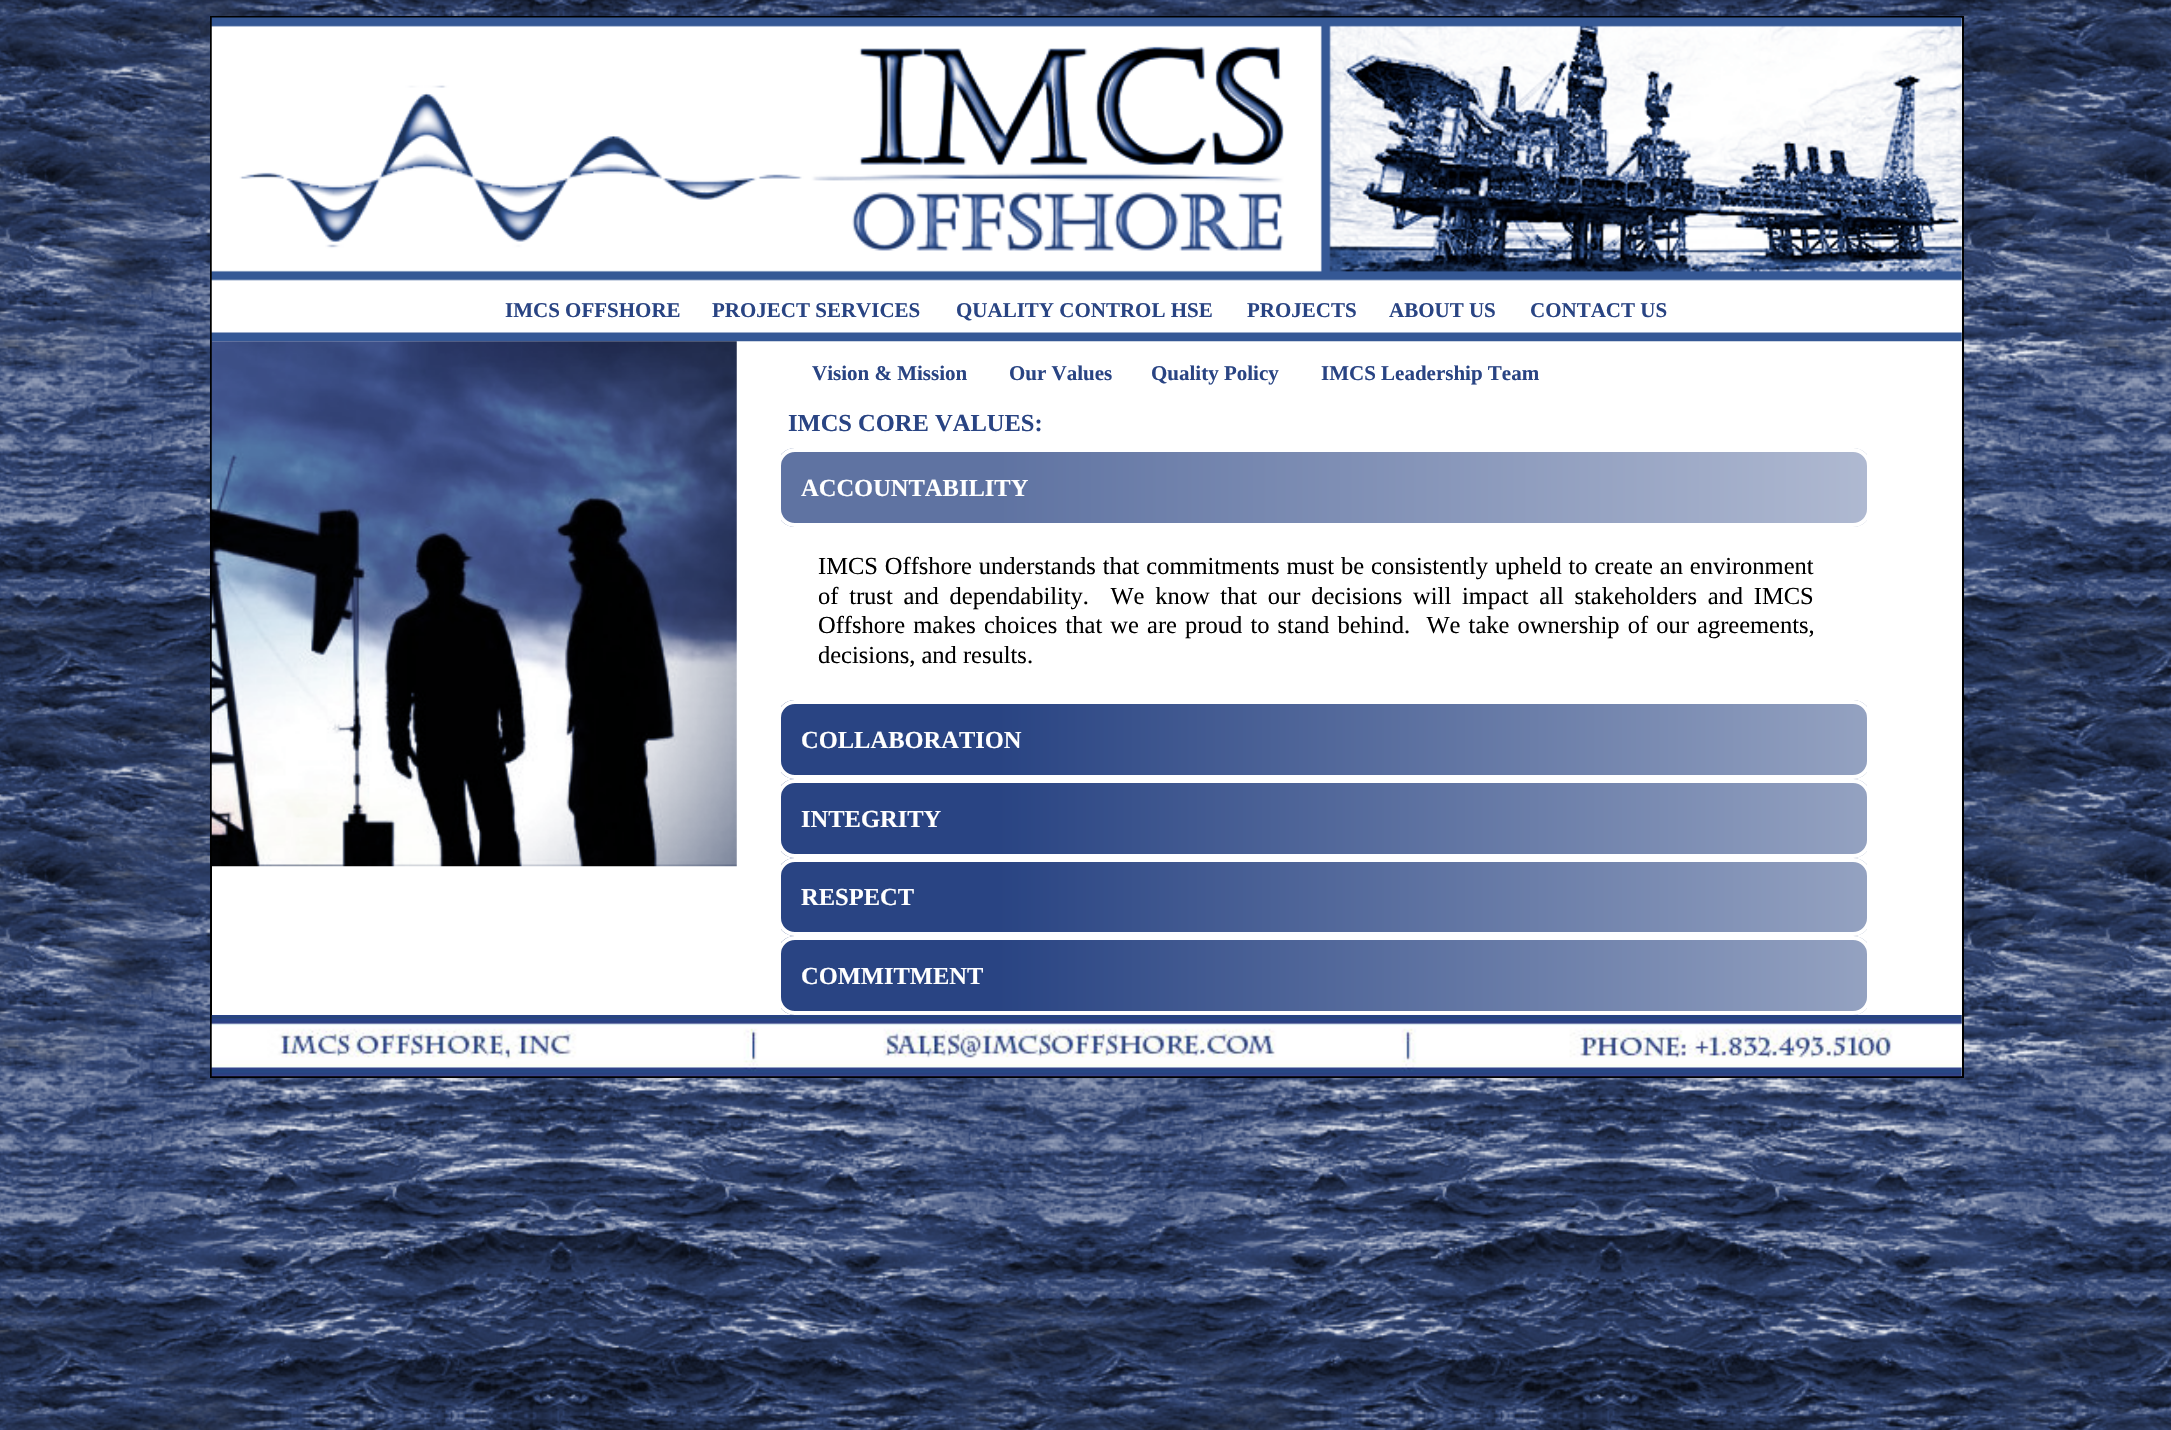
void draw(SkCanvas* canvas) {
	SkPaint paint;
	paint.setAntiAlias(true);
	auto spacedText = [&](const char* s, float x, float y, const SkFont& font, const SkPaint& ink, float letter, float word) {
		std::vector<SkGlyphID> glyphs(font.countText(s, strlen(s), SkTextEncoding::kUTF8));
		std::vector<float> xs(glyphs.size());
		font.textToGlyphs(s, strlen(s), SkTextEncoding::kUTF8, glyphs);
		font.getXPos(glyphs, xs, x);
		float extra = 0;
		for (size_t i = 0; i < glyphs.size(); i++) {
			xs[i] += extra;
			extra += letter + word * (glyphs[i] == font.unicharToGlyph(' '));
		}
		canvas->drawTextBlob(SkTextBlob::MakeFromPosHGlyphs(glyphs, xs, y, font), 0, 0, ink);
	};
	auto svgPath = [&](const char* data, bool evenOdd = false) {
		SkPath result = *SkParsePath::FromSVGString(data);
		if (evenOdd) result.setFillType(SkPathFillType::kEvenOdd);
		return result;
	};
	canvas->clear(0xffffffff);
	canvas->drawImageRect(SkImages::DeferredFromEncodedData(SkData::MakeFromFileName("img1.png")), SkRect::MakeXYWH(0, 0, 2171, 1430), SkSamplingOptions());
	paint.setColor(0xffffffff);
	canvas->drawRect(SkRect::MakeXYWH(211, 17, 1752, 1060), paint);
	paint.setStroke(true);
	paint.setStrokeWidth(2);
	paint.setColor(0xff000000);
	canvas->drawRect(SkRect::MakeXYWH(211, 17, 1752, 1060), paint);
	canvas->drawImageRect(SkImages::DeferredFromEncodedData(SkData::MakeFromFileName("img2.png")), SkRect::MakeXYWH(211, 17, 1751, 325), SkSamplingOptions());
	SkFont f1(fontMgr->matchFamilyStyle("Liberation Serif", SkFontStyle::Bold()), 21);
	f1.setSubpixel(true);
	paint.setStroke(false);
	paint.setColor(0xff294483);
	canvas->drawString("IMCS OFFSHORE", 505, 317, f1, paint);
	canvas->drawString("PROJECT SERVICES", 712, 317, f1, paint);
	canvas->drawString("QUALITY CONTROL HSE", 956, 317, f1, paint);
	canvas->drawString("PROJECTS", 1247, 317, f1, paint);
	canvas->drawString("ABOUT US", 1389, 317, f1, paint);
	canvas->drawString("CONTACT US", 1530, 317, f1, paint);
	canvas->drawImageRect(SkImages::DeferredFromEncodedData(SkData::MakeFromFileName("img3.png")), SkRect::MakeXYWH(211, 341, 526, 526), SkSamplingOptions());
	canvas->drawString("Vision & Mission", 812, 380, f1, paint);
	canvas->drawString("Our Values", 1009, 380, f1, paint);
	canvas->drawString("Quality Policy", 1151, 380, f1, paint);
	canvas->drawString("IMCS Leadership Team", 1321, 380, f1, paint);
	SkFont f2(fontMgr->matchFamilyStyle("Liberation Serif", SkFontStyle::Bold()), 24.5);
	f2.setSubpixel(true);
	canvas->drawString("IMCS CORE VALUES:", 788, 431, f2, paint);
	canvas->save();
	canvas->clipPath(svgPath("M795 448H1853C1863 448 1871 456 1871 466V509C1871 519 1863 527 1853 527H795C785 527 777 519 777 509V466C777 456 785 448 795 448Z"), true);
	{
		const SkColor colors[] = {0xff5f73a2, 0xffafb9d1};
		const float stops[] = {0.2, 1};
		const SkPoint ends[] = {{781, 487}, {1867, 487}};
		paint.setShader(SkGradientShader::MakeLinear(ends, colors, stops, 2, SkTileMode::kClamp));
		paint.setAlpha(255);
	}
	canvas->drawRect(SkRect::MakeXYWH(781, 448, 1086, 79), paint);
	canvas->restore();
	paint.setStroke(true);
	paint.setStrokeWidth(4);
	paint.setShader(nullptr);
	paint.setColor(0xffffffff);
	canvas->drawRoundRect(SkRect::MakeXYWH(779, 450, 1090, 75), 16, 16, paint);
	paint.setStroke(false);
	canvas->drawString("ACCOUNTABILITY", 801, 496, f2, paint);
	SkFont f3(fontMgr->matchFamilyStyle("Liberation Serif", SkFontStyle::Normal()), 24.5);
	f3.setSubpixel(true);
	paint.setColor(0xff000000);
	spacedText("IMCS Offshore understands that commitments must be consistently upheld to create an environment", 818, 574, f3, paint, 0, 0.75);
	spacedText("of trust and dependability.  We know that our decisions will impact all stakeholders and IMCS", 818, 604, f3, paint, 0, 4.6);
	spacedText("Offshore makes choices that we are proud to stand behind.  We take ownership of our agreements,", 818, 633, f3, paint, 0, 2);
	canvas->drawString("decisions, and results.", 818, 663, f3, paint);
	canvas->save();
	canvas->clipPath(svgPath("M795 700H1853C1863 700 1871 708 1871 718V761C1871 771 1863 779 1853 779H795C785 779 777 771 777 761V718C777 708 785 700 795 700Z"), true);
	{
		const SkColor colors[] = {0xff294483, 0xff94a2c1};
		const float stops[] = {0.2, 1};
		const SkPoint ends[] = {{781, 739}, {1867, 739}};
		paint.setShader(SkGradientShader::MakeLinear(ends, colors, stops, 2, SkTileMode::kClamp));
		paint.setAlpha(255);
	}
	canvas->drawRect(SkRect::MakeXYWH(781, 700, 1086, 79), paint);
	canvas->restore();
	paint.setStroke(true);
	paint.setShader(nullptr);
	paint.setColor(0xffffffff);
	canvas->drawRoundRect(SkRect::MakeXYWH(779, 702, 1090, 75), 16, 16, paint);
	paint.setStroke(false);
	canvas->drawString("COLLABORATION", 801, 748, f2, paint);
	canvas->save();
	canvas->clipPath(svgPath("M795 779H1853C1863 779 1871 787 1871 797V840C1871 850 1863 858 1853 858H795C785 858 777 850 777 840V797C777 787 785 779 795 779Z"), true);
	{
		const SkColor colors[] = {0xff294483, 0xff94a2c1};
		const float stops[] = {0.2, 1};
		const SkPoint ends[] = {{781, 818}, {1867, 818}};
		paint.setShader(SkGradientShader::MakeLinear(ends, colors, stops, 2, SkTileMode::kClamp));
		paint.setAlpha(255);
	}
	canvas->drawRect(SkRect::MakeXYWH(781, 779, 1086, 79), paint);
	canvas->restore();
	paint.setStroke(true);
	paint.setShader(nullptr);
	paint.setColor(0xffffffff);
	canvas->drawRoundRect(SkRect::MakeXYWH(779, 781, 1090, 75), 16, 16, paint);
	paint.setStroke(false);
	canvas->drawString("INTEGRITY", 801, 827, f2, paint);
	canvas->save();
	canvas->clipPath(svgPath("M795 858H1853C1863 858 1871 866 1871 876V918C1871 928 1863 936 1853 936H795C785 936 777 928 777 918V876C777 866 785 858 795 858Z"), true);
	{
		const SkColor colors[] = {0xff294483, 0xff94a2c1};
		const float stops[] = {0.2, 1};
		const SkPoint ends[] = {{781, 897}, {1867, 897}};
		paint.setShader(SkGradientShader::MakeLinear(ends, colors, stops, 2, SkTileMode::kClamp));
		paint.setAlpha(255);
	}
	canvas->drawRect(SkRect::MakeXYWH(781, 858, 1086, 78), paint);
	canvas->restore();
	paint.setStroke(true);
	paint.setShader(nullptr);
	paint.setColor(0xffffffff);
	canvas->drawRoundRect(SkRect::MakeXYWH(779, 860, 1090, 74), 16, 16, paint);
	paint.setStroke(false);
	canvas->drawString("RESPECT", 801, 905, f2, paint);
	canvas->save();
	canvas->clipPath(svgPath("M795 936H1853C1863 936 1871 944 1871 954V997C1871 1007 1863 1015 1853 1015H795C785 1015 777 1007 777 997V954C777 944 785 936 795 936Z"), true);
	{
		const SkColor colors[] = {0xff294483, 0xff94a2c1};
		const float stops[] = {0.2, 1};
		const SkPoint ends[] = {{781, 976}, {1867, 976}};
		paint.setShader(SkGradientShader::MakeLinear(ends, colors, stops, 2, SkTileMode::kClamp));
		paint.setAlpha(255);
	}
	canvas->drawRect(SkRect::MakeXYWH(781, 936, 1086, 79), paint);
	canvas->restore();
	paint.setStroke(true);
	paint.setShader(nullptr);
	paint.setColor(0xffffffff);
	canvas->drawRoundRect(SkRect::MakeXYWH(779, 938, 1090, 75), 16, 16, paint);
	paint.setStroke(false);
	canvas->drawString("COMMITMENT", 801, 984, f2, paint);
	canvas->drawImageRect(SkImages::DeferredFromEncodedData(SkData::MakeFromFileName("img4.png")), SkRect::MakeXYWH(211, 1015, 1751, 62), SkSamplingOptions());
}
